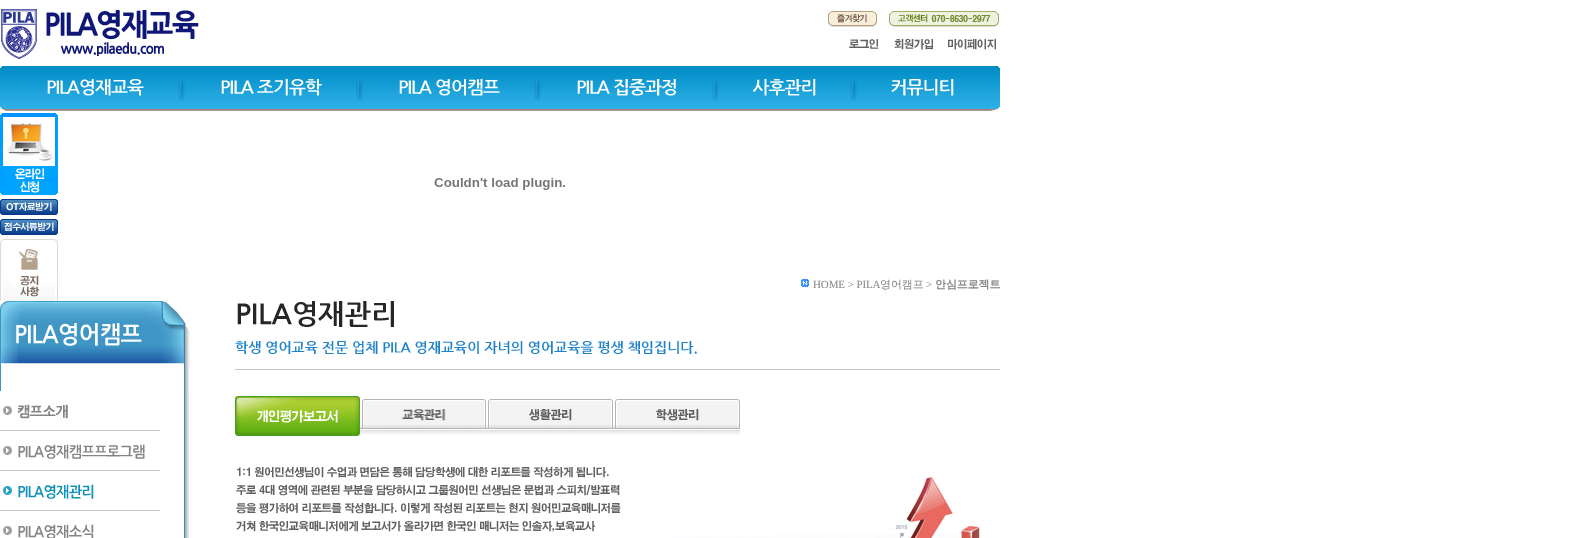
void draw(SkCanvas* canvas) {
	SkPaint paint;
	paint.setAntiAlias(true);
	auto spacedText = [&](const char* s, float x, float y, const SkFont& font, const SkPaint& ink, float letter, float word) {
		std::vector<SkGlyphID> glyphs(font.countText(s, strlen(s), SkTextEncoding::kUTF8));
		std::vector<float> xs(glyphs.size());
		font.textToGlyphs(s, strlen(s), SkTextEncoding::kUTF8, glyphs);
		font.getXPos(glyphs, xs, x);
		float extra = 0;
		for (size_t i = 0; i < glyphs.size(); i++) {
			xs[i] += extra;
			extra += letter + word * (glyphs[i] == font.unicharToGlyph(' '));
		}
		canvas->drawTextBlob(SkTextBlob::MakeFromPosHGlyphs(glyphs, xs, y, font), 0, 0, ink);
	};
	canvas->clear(0xffffffff);
	canvas->drawImageRect(SkImages::DeferredFromEncodedData(SkData::MakeFromFileName("img1.png")), SkRect::MakeXYWH(1, 9, 198, 50), SkSamplingOptions());
	canvas->drawImageRect(SkImages::DeferredFromEncodedData(SkData::MakeFromFileName("img2.png")), SkRect::MakeXYWH(828, 11, 49, 16), SkSamplingOptions());
	canvas->drawImageRect(SkImages::DeferredFromEncodedData(SkData::MakeFromFileName("img3.png")), SkRect::MakeXYWH(889, 11, 110, 16), SkSamplingOptions());
	canvas->drawImageRect(SkImages::DeferredFromEncodedData(SkData::MakeFromFileName("img4.png")), SkRect::MakeXYWH(849, 39, 30, 10), SkSamplingOptions());
	canvas->drawImageRect(SkImages::DeferredFromEncodedData(SkData::MakeFromFileName("img5.png")), SkRect::MakeXYWH(894, 39, 40, 11), SkSamplingOptions());
	canvas->drawImageRect(SkImages::DeferredFromEncodedData(SkData::MakeFromFileName("img6.png")), SkRect::MakeXYWH(948, 39, 48, 11), SkSamplingOptions());
	canvas->drawImageRect(SkImages::DeferredFromEncodedData(SkData::MakeFromFileName("img7.png")), SkRect::MakeXYWH(0, 66, 1000, 45), SkSamplingOptions());
	canvas->drawImageRect(SkImages::DeferredFromEncodedData(SkData::MakeFromFileName("img8.png")), SkRect::MakeXYWH(47, 79, 97, 17), SkSamplingOptions());
	canvas->drawImageRect(SkImages::DeferredFromEncodedData(SkData::MakeFromFileName("img9.png")), SkRect::MakeXYWH(178, 80, 7, 21), SkSamplingOptions());
	canvas->drawImageRect(SkImages::DeferredFromEncodedData(SkData::MakeFromFileName("img10.png")), SkRect::MakeXYWH(221, 79, 101, 17), SkSamplingOptions());
	canvas->drawImageRect(SkImages::DeferredFromEncodedData(SkData::MakeFromFileName("img9.png")), SkRect::MakeXYWH(356, 80, 7, 21), SkSamplingOptions());
	canvas->drawImageRect(SkImages::DeferredFromEncodedData(SkData::MakeFromFileName("img11.png")), SkRect::MakeXYWH(399, 79, 101, 17), SkSamplingOptions());
	canvas->drawImageRect(SkImages::DeferredFromEncodedData(SkData::MakeFromFileName("img9.png")), SkRect::MakeXYWH(534, 80, 7, 21), SkSamplingOptions());
	canvas->drawImageRect(SkImages::DeferredFromEncodedData(SkData::MakeFromFileName("img12.png")), SkRect::MakeXYWH(577, 79, 99, 17), SkSamplingOptions());
	canvas->drawImageRect(SkImages::DeferredFromEncodedData(SkData::MakeFromFileName("img9.png")), SkRect::MakeXYWH(712, 80, 7, 21), SkSamplingOptions());
	canvas->drawImageRect(SkImages::DeferredFromEncodedData(SkData::MakeFromFileName("img13.png")), SkRect::MakeXYWH(753, 79, 63, 17), SkSamplingOptions());
	canvas->drawImageRect(SkImages::DeferredFromEncodedData(SkData::MakeFromFileName("img9.png")), SkRect::MakeXYWH(850, 80, 7, 21), SkSamplingOptions());
	canvas->drawImageRect(SkImages::DeferredFromEncodedData(SkData::MakeFromFileName("img14.png")), SkRect::MakeXYWH(891, 79, 63, 17), SkSamplingOptions());
	canvas->drawImageRect(SkImages::DeferredFromEncodedData(SkData::MakeFromFileName("img15.png")), SkRect::MakeXYWH(0, 113, 58, 82), SkSamplingOptions());
	canvas->drawImageRect(SkImages::DeferredFromEncodedData(SkData::MakeFromFileName("img16.png")), SkRect::MakeXYWH(0, 199, 58, 16), SkSamplingOptions());
	canvas->drawImageRect(SkImages::DeferredFromEncodedData(SkData::MakeFromFileName("img17.png")), SkRect::MakeXYWH(0, 219, 58, 16), SkSamplingOptions());
	canvas->drawImageRect(SkImages::DeferredFromEncodedData(SkData::MakeFromFileName("img18.png")), SkRect::MakeXYWH(0, 239, 58, 62), SkSamplingOptions());
	canvas->drawImageRect(SkImages::DeferredFromEncodedData(SkData::MakeFromFileName("img19.png")), SkRect::MakeXYWH(434, 178, 131, 12), SkSamplingOptions());
	canvas->drawImageRect(SkImages::DeferredFromEncodedData(SkData::MakeFromFileName("img20.png")), SkRect::MakeXYWH(801, 279, 8, 8), SkSamplingOptions());
	SkFont f1(fontMgr->matchFamilyStyle("Liberation Serif", SkFontStyle::Normal()), 11);
	f1.setSubpixel(true);
	paint.setColor(0xff8d8d8d);
	spacedText("HOME > PILA", 813, 288, f1, paint, -0.1, 0);
	SkFont f2(fontMgr->matchFamilyStyle("WenQuanYi Zen Hei", SkFontStyle(500, SkFontStyle::kNormal_Width, SkFontStyle::kUpright_Slant)), 11);
	f2.setSubpixel(true);
	spacedText("영어캠프", 880, 288, f2, paint, -0.1, 0);
	spacedText(">", 926, 288, f1, paint, -0.1, 0);
	SkFont f3(fontMgr->matchFamilyStyle("WenQuanYi Zen Hei", SkFontStyle::Bold()), 11);
	f3.setSubpixel(true);
	paint.setColor(0xff878787);
	spacedText("안심프로젝트", 935, 288, f3, paint, -0.1, 0);
	canvas->drawImageRect(SkImages::DeferredFromEncodedData(SkData::MakeFromFileName("img21.png")), SkRect::MakeXYWH(0, 301, 190, 90), SkSamplingOptions());
	canvas->drawImageRect(SkImages::DeferredFromEncodedData(SkData::MakeFromFileName("img22.png")), SkRect::MakeXYWH(94, 391, 95, 147), SkSamplingOptions());
	canvas->drawImageRect(SkImages::DeferredFromEncodedData(SkData::MakeFromFileName("img23.png")), SkRect::MakeXYWH(0, 391, 160, 40), SkSamplingOptions());
	canvas->drawImageRect(SkImages::DeferredFromEncodedData(SkData::MakeFromFileName("img24.png")), SkRect::MakeXYWH(0, 431, 160, 40), SkSamplingOptions());
	canvas->drawImageRect(SkImages::DeferredFromEncodedData(SkData::MakeFromFileName("img25.png")), SkRect::MakeXYWH(0, 471, 160, 40), SkSamplingOptions());
	canvas->drawImageRect(SkImages::DeferredFromEncodedData(SkData::MakeFromFileName("img26.png")), SkRect::MakeXYWH(0, 511, 94, 27), SkSamplingOptions());
	canvas->drawImageRect(SkImages::DeferredFromEncodedData(SkData::MakeFromFileName("img27.png")), SkRect::MakeXYWH(235, 301, 765, 69), SkSamplingOptions());
	canvas->drawImageRect(SkImages::DeferredFromEncodedData(SkData::MakeFromFileName("img28.png")), SkRect::MakeXYWH(235, 396, 125, 40), SkSamplingOptions());
	canvas->drawImageRect(SkImages::DeferredFromEncodedData(SkData::MakeFromFileName("img29.png")), SkRect::MakeXYWH(360, 425, 2, 10), SkSamplingOptions());
	canvas->drawImageRect(SkImages::DeferredFromEncodedData(SkData::MakeFromFileName("img30.png")), SkRect::MakeXYWH(362, 399, 124, 36), SkSamplingOptions());
	canvas->drawImageRect(SkImages::DeferredFromEncodedData(SkData::MakeFromFileName("img29.png")), SkRect::MakeXYWH(486, 425, 2, 10), SkSamplingOptions());
	canvas->drawImageRect(SkImages::DeferredFromEncodedData(SkData::MakeFromFileName("img31.png")), SkRect::MakeXYWH(488, 399, 125, 36), SkSamplingOptions());
	canvas->drawImageRect(SkImages::DeferredFromEncodedData(SkData::MakeFromFileName("img29.png")), SkRect::MakeXYWH(613, 425, 2, 10), SkSamplingOptions());
	canvas->drawImageRect(SkImages::DeferredFromEncodedData(SkData::MakeFromFileName("img32.png")), SkRect::MakeXYWH(615, 399, 125, 36), SkSamplingOptions());
	canvas->drawImageRect(SkImages::DeferredFromEncodedData(SkData::MakeFromFileName("img33.png")), SkRect::MakeXYWH(236, 466, 744, 72), SkSamplingOptions());
}
